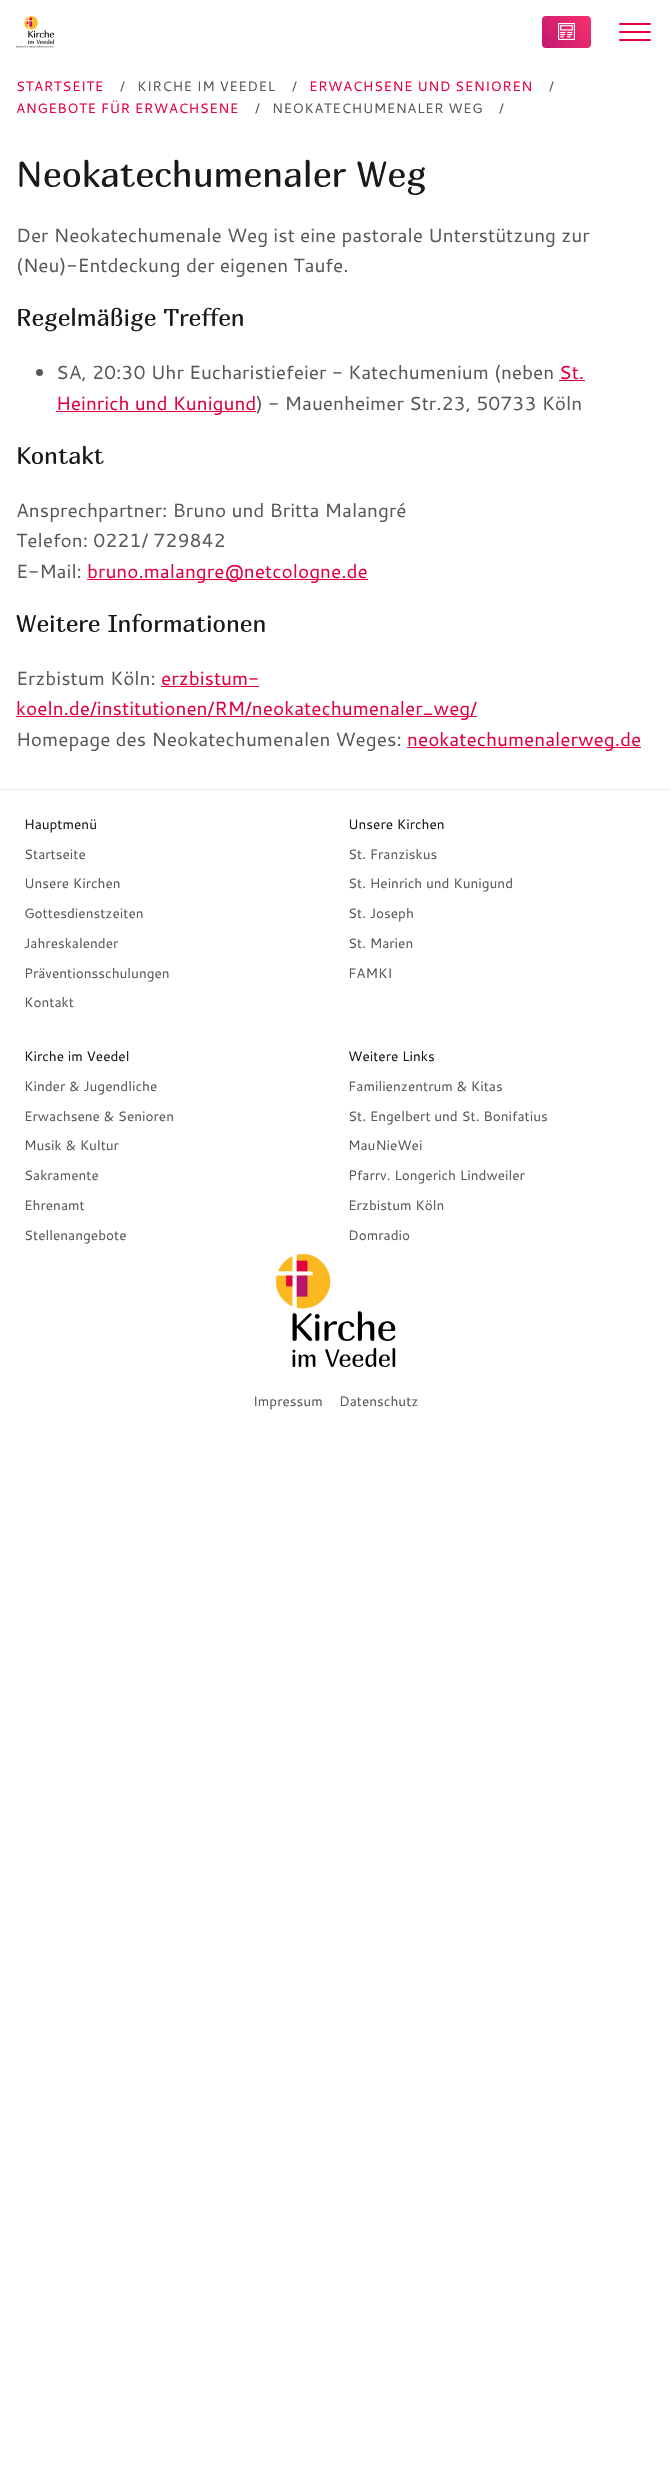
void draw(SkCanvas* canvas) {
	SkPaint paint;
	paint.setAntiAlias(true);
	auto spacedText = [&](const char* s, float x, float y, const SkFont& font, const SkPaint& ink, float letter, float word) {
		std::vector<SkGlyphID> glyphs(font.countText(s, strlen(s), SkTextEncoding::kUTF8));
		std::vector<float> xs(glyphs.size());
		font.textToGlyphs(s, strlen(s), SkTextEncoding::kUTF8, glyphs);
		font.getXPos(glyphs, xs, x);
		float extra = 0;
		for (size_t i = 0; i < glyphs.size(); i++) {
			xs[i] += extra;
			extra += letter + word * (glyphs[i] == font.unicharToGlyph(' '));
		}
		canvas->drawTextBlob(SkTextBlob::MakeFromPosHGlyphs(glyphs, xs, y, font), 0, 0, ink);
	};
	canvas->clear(0xffffffff);
	canvas->drawImageRect(SkImages::DeferredFromEncodedData(SkData::MakeFromFileName("img1.png")), SkRect::MakeXYWH(16, 16, 38, 32), SkSamplingOptions());
	{
		const SkColor colors[] = {0xffff336c, 0xffb81570};
		const float stops[] = {0, 1};
		const SkPoint ends[] = {{593, 9}, {538, 56}};
		paint.setShader(SkGradientShader::MakeLinear(ends, colors, stops, 2, SkTileMode::kClamp));
		paint.setAlpha(255);
	}
	canvas->drawRoundRect(SkRect::MakeXYWH(542, 16, 49, 32), 4, 4, paint);
	canvas->drawImageRect(SkImages::DeferredFromEncodedData(SkData::MakeFromFileName("img2.png")), SkRect::MakeXYWH(558, 23, 17, 17), SkSamplingOptions());
	paint.setShader(nullptr);
	paint.setColor(0xffe50040);
	canvas->drawRoundRect(SkRect::MakeXYWH(619, 23, 32, 2), 1, 1, paint);
	canvas->drawRoundRect(SkRect::MakeXYWH(619, 31, 32, 2), 1, 1, paint);
	canvas->drawRoundRect(SkRect::MakeXYWH(619, 39, 32, 2), 1, 1, paint);
	SkFont f1(fontMgr->matchFamilyStyle("Cantarell", SkFontStyle::Normal()), 13.6);
	f1.setSubpixel(true);
	spacedText("STARTSEITE", 16, 91, f1, paint, 0.5, 0);
	paint.setColor(0xff595959);
	spacedText("/", 120, 91, f1, paint, 0.5, 0);
	spacedText("KIRCHE IM VEEDEL", 137, 91, f1, paint, 0.5, 0);
	spacedText("/", 292, 91, f1, paint, 0.5, 0);
	paint.setColor(0xffe50040);
	spacedText("ERWACHSENE UND SENIOREN", 309, 91, f1, paint, 0.5, 0);
	paint.setColor(0xff595959);
	spacedText("/", 549, 91, f1, paint, 0.5, 0);
	paint.setColor(0xffe50040);
	spacedText("ANGEBOTE FÜR ERWACHSENE", 16, 113, f1, paint, 0.5, 0);
	paint.setColor(0xff595959);
	spacedText("/", 255, 113, f1, paint, 0.5, 0);
	spacedText("NEOKATECHUMENALER WEG", 272, 113, f1, paint, 0.5, 0);
	spacedText("/", 499, 113, f1, paint, 0.5, 0);
	SkFont f2(fontMgr->matchFamilyStyle("Marmelad", SkFontStyle::Normal()), 36);
	f2.setSubpixel(true);
	paint.setColor(0xff1a1a1a);
	canvas->drawString("Neokatechumenaler Weg", 16, 187, f2, paint);
	SkFont f3(fontMgr->matchFamilyStyle("Cantarell", SkFontStyle::Normal()), 19);
	f3.setSubpixel(true);
	paint.setColor(0xff595959);
	canvas->drawString("Der Neokatechumenale Weg ist eine pastorale Unterstützung zur", 16, 242, f3, paint);
	canvas->drawString("(Neu)-Entdeckung der eigenen Taufe.", 16, 272, f3, paint);
	SkFont f4(fontMgr->matchFamilyStyle("Marmelad", SkFontStyle::Normal()), 24);
	f4.setSubpixel(true);
	paint.setColor(0xff1a1a1a);
	canvas->drawString("Regelmäßige Treffen", 16, 326, f4, paint);
	paint.setColor(0xff595959);
	canvas->drawCircle(39.5, 372.5, 3.5, paint);
	canvas->drawString("SA, 20:30 Uhr Eucharistiefeier - Katechumenium (neben", 56, 379, f3, paint);
	paint.setColor(0xffe50040);
	canvas->drawString("St.", 559, 379, f3, paint);
	canvas->drawRect(SkRect::MakeXYWH(559, 380, 26, 1), paint);
	canvas->drawRect(SkRect::MakeXYWH(56, 411, 200, 1), paint);
	canvas->drawString("Heinrich und Kunigund", 56, 410, f3, paint);
	paint.setColor(0xff595959);
	canvas->drawString(") - Mauenheimer Str.23, 50733 Köln", 256, 410, f3, paint);
	paint.setColor(0xff1a1a1a);
	canvas->drawString("Kontakt", 16, 464, f4, paint);
	paint.setColor(0xff595959);
	canvas->drawString("Ansprechpartner: Bruno und Britta Malangré", 16, 517, f3, paint);
	canvas->drawString("Telefon: 0221/ 729842", 16, 547, f3, paint);
	canvas->drawString("E-Mail:", 16, 578, f3, paint);
	paint.setColor(0xffe50040);
	canvas->drawRect(SkRect::MakeXYWH(87, 579, 281, 1), paint);
	canvas->drawString("bruno.malangre@netcologne.de", 87, 578, f3, paint);
	paint.setColor(0xff1a1a1a);
	canvas->drawString("Weitere Informationen", 16, 632, f4, paint);
	paint.setColor(0xff595959);
	canvas->drawString("Erzbistum Köln:", 16, 685, f3, paint);
	paint.setColor(0xffe50040);
	canvas->drawString("erzbistum-", 161, 685, f3, paint);
	canvas->drawRect(SkRect::MakeXYWH(161, 686, 98, 1), paint);
	canvas->drawRect(SkRect::MakeXYWH(16, 716, 461, 1), paint);
	canvas->drawString("koeln.de/institutionen/RM/neokatechumenaler_weg/", 16, 715, f3, paint);
	paint.setColor(0xff595959);
	canvas->drawString("Homepage des Neokatechumenalen Weges:", 16, 746, f3, paint);
	paint.setColor(0xffe50040);
	canvas->drawRect(SkRect::MakeXYWH(407, 747, 234, 1), paint);
	canvas->drawString("neokatechumenalerweg.de", 407, 746, f3, paint);
	paint.setColor(0xffebebeb);
	canvas->drawRect(SkRect::MakeXYWH(0, 789, 671, 1), paint);
	paint.setColor(0xff1a1a1a);
	canvas->drawString("Hauptmenü", 24, 829, f1, paint);
	paint.setColor(0xff595959);
	canvas->drawString("Startseite", 24, 859, f1, paint);
	canvas->drawString("Unsere Kirchen", 24, 888, f1, paint);
	canvas->drawString("Gottesdienstzeiten", 24, 918, f1, paint);
	canvas->drawString("Jahreskalender", 24, 948, f1, paint);
	canvas->drawString("Präventionsschulungen", 24, 978, f1, paint);
	canvas->drawString("Kontakt", 24, 1007, f1, paint);
	paint.setColor(0xff1a1a1a);
	canvas->drawString("Unsere Kirchen", 348, 829, f1, paint);
	paint.setColor(0xff595959);
	canvas->drawString("St. Franziskus", 348, 859, f1, paint);
	canvas->drawString("St. Heinrich und Kunigund", 348, 888, f1, paint);
	canvas->drawString("St. Joseph", 348, 918, f1, paint);
	canvas->drawString("St. Marien", 348, 948, f1, paint);
	canvas->drawString("FAMKI", 348, 978, f1, paint);
	paint.setColor(0xff1a1a1a);
	canvas->drawString("Kirche im Veedel", 24, 1061, f1, paint);
	paint.setColor(0xff595959);
	canvas->drawString("Kinder & Jugendliche", 24, 1091, f1, paint);
	canvas->drawString("Erwachsene & Senioren", 24, 1121, f1, paint);
	canvas->drawString("Musik & Kultur", 24, 1150, f1, paint);
	canvas->drawString("Sakramente", 24, 1180, f1, paint);
	canvas->drawString("Ehrenamt", 24, 1210, f1, paint);
	canvas->drawString("Stellenangebote", 24, 1240, f1, paint);
	paint.setColor(0xff1a1a1a);
	canvas->drawString("Weitere Links", 348, 1061, f1, paint);
	paint.setColor(0xff595959);
	canvas->drawString("Familienzentrum & Kitas", 348, 1091, f1, paint);
	canvas->drawString("St. Engelbert und St. Bonifatius", 348, 1121, f1, paint);
	canvas->drawString("MauNieWei", 348, 1150, f1, paint);
	canvas->drawString("Pfarrv. Longerich Lindweiler", 348, 1180, f1, paint);
	canvas->drawString("Erzbistum Köln", 348, 1210, f1, paint);
	canvas->drawString("Domradio", 348, 1240, f1, paint);
	canvas->drawImageRect(SkImages::DeferredFromEncodedData(SkData::MakeFromFileName("img3.png")), SkRect::MakeXYWH(276, 1254, 120, 113), SkSamplingOptions());
	canvas->drawString("Impressum", 253, 1406, f1, paint);
	canvas->drawString("Datenschutz", 339, 1406, f1, paint);
}
